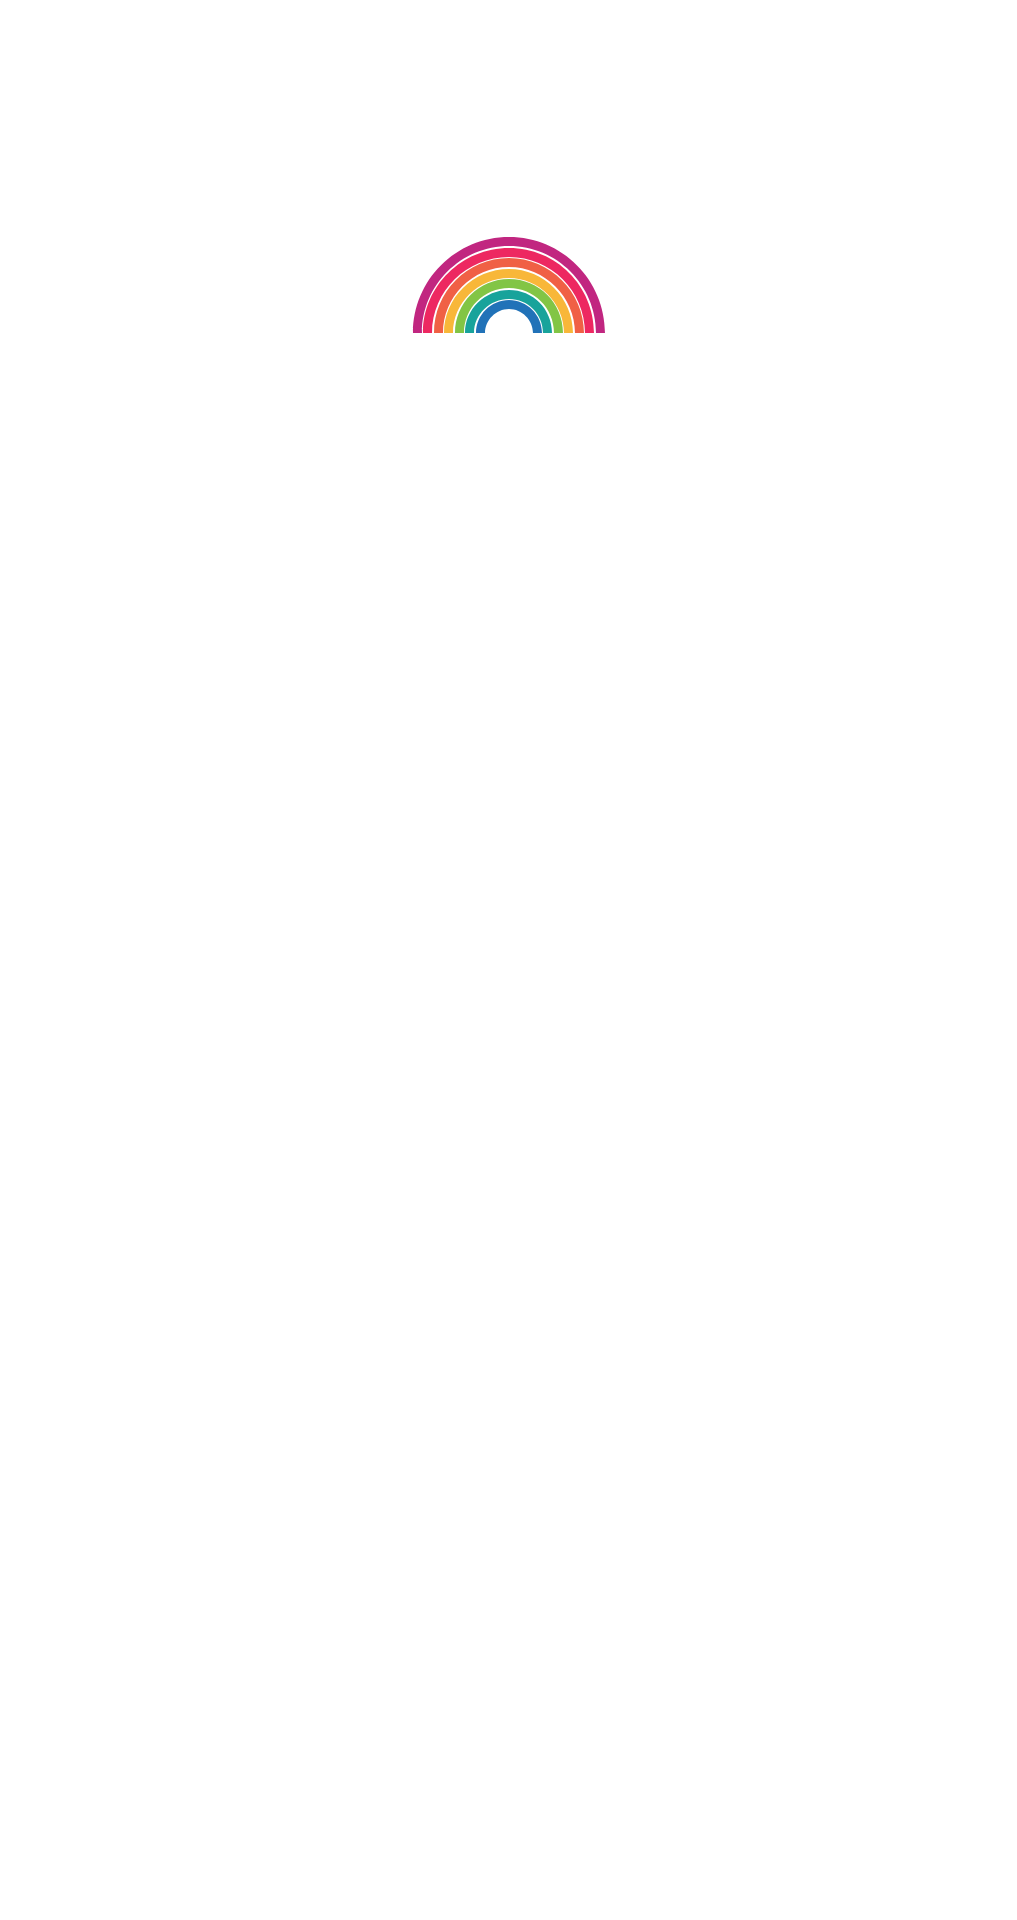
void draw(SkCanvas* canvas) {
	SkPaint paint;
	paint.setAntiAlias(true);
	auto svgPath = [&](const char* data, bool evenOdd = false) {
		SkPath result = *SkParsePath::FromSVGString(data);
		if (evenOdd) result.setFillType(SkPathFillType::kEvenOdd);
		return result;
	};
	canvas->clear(0xffffffff);
	paint.setColor(0xff2172b8);
	canvas->drawPath(svgPath("M509 300C527 300 542 315 542 333H476C476 315 491 300 509 300ZM509 309C522 309 533 320 533 333H485C485 320 496 309 509 309Z", true), paint);
	paint.setColor(0xff18a39b);
	canvas->drawPath(svgPath("M509 290C533 290 552 309 552 333H465C465 309 485 290 509 290ZM509 299C528 299 543 314 543 333H474C474 314 490 299 509 299Z", true), paint);
	paint.setColor(0xff82c545);
	canvas->drawPath(svgPath("M509 279C539 279 563 303 563 333H455C455 303 479 279 509 279ZM509 288C534 288 554 308 554 333H464C464 308 484 288 509 288Z", true), paint);
	paint.setColor(0xfff8b739);
	canvas->drawPath(svgPath("M509 269C544 269 573 298 573 333H444C444 298 473 269 509 269ZM509 278C539 278 564 303 564 333H453C453 303 478 278 509 278Z", true), paint);
	paint.setColor(0xfff06045);
	canvas->drawPath(svgPath("M509 258C550 258 584 292 584 333H434C434 292 467 258 509 258ZM509 267C545 267 575 297 575 333H443C443 297 472 267 509 267Z", true), paint);
	paint.setColor(0xffed2861);
	canvas->drawPath(svgPath("M509 248C556 248 594 286 594 333H423C423 286 462 248 509 248ZM509 257C551 257 585 291 585 333H432C432 291 467 257 509 257Z", true), paint);
	paint.setColor(0xffc12680);
	canvas->drawPath(svgPath("M509 237C562 237 605 280 605 333H413C413 280 456 237 509 237ZM509 246C557 246 596 285 596 333H422C422 285 461 246 509 246Z", true), paint);
}
